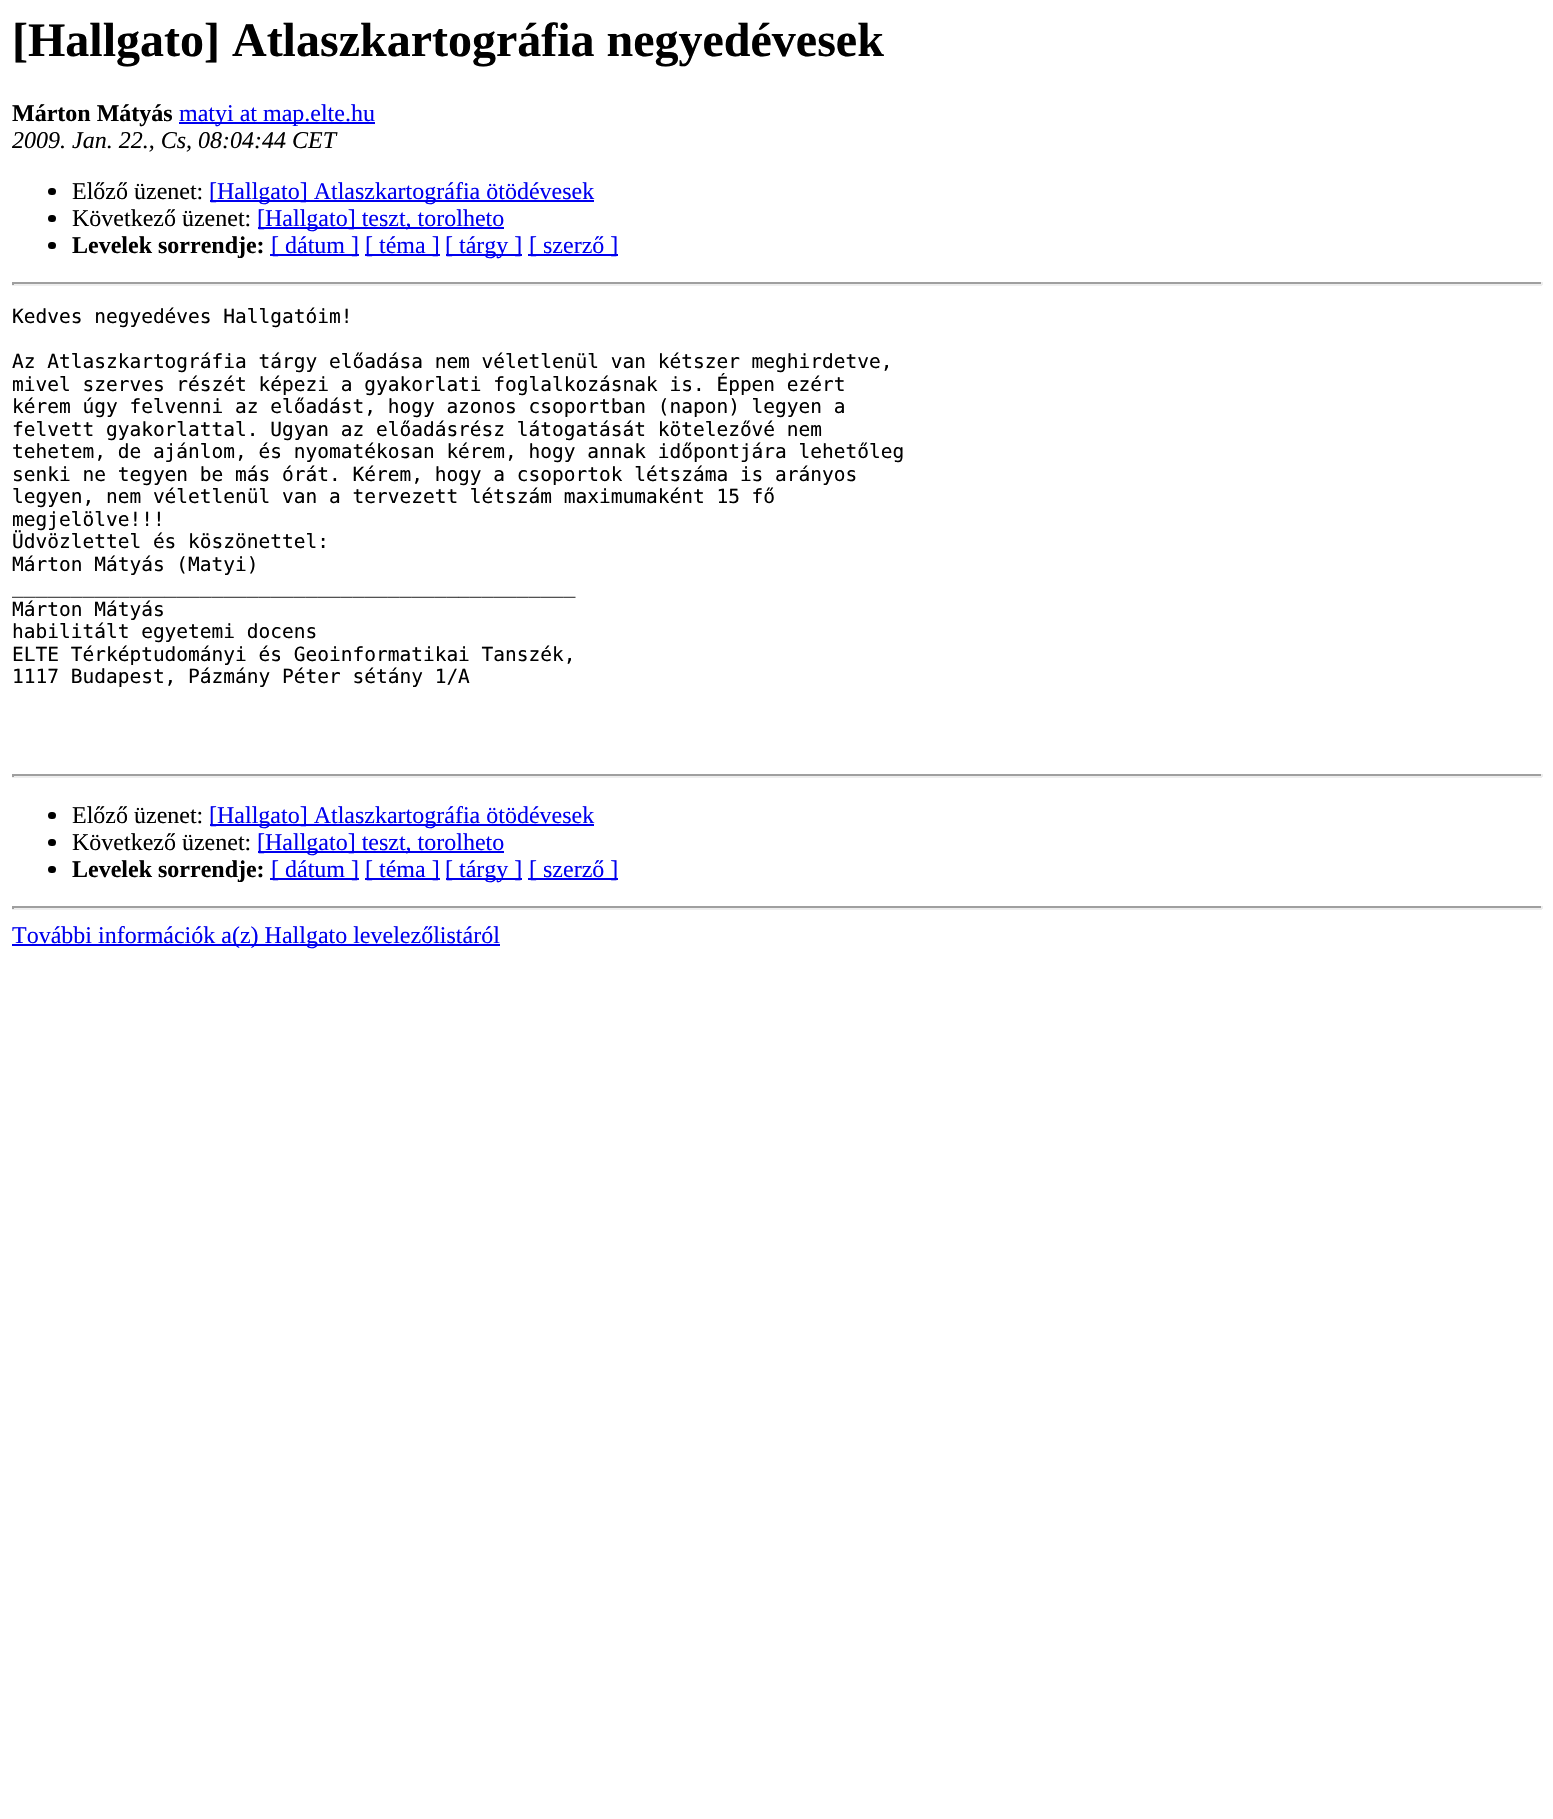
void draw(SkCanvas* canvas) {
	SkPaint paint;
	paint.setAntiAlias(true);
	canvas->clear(0xffffffff);
	SkFont f1(fontMgr->matchFamilyStyle("Liberation Serif", SkFontStyle::Bold()), 48);
	f1.setSubpixel(true);
	paint.setColor(0xff000000);
	canvas->drawString("[Hallgato] Atlaszkartográfia negyedévesek", 12, 56, f1, paint);
	SkFont f2(fontMgr->matchFamilyStyle("Liberation Serif", SkFontStyle::Bold()), 24);
	f2.setSubpixel(true);
	canvas->drawString("Márton Mátyás", 12, 121, f2, paint);
	paint.setColor(0xff0000ee);
	canvas->drawRect(SkRect::MakeXYWH(179, 122, 196, 2), paint);
	SkFont f3(fontMgr->matchFamilyStyle("Liberation Serif", SkFontStyle::Normal()), 24);
	f3.setSubpixel(true);
	canvas->drawString("matyi at map.elte.hu", 179, 121, f3, paint);
	SkFont f4(fontMgr->matchFamilyStyle("Liberation Serif", SkFontStyle::Italic()), 24);
	f4.setSubpixel(true);
	paint.setColor(0xff000000);
	canvas->drawString("2009. Jan. 22., Cs, 08:04:44 CET", 12, 148, f4, paint);
	canvas->drawRoundRect(SkRect::MakeXYWH(48, 188, 8, 7), 3.5, 3.5, paint);
	canvas->drawString("Előző üzenet:", 72, 199, f3, paint);
	paint.setColor(0xff0000ee);
	canvas->drawRect(SkRect::MakeXYWH(210, 200, 384, 2), paint);
	canvas->drawString("[Hallgato] Atlaszkartográfia ötödévesek", 209, 199, f3, paint);
	paint.setColor(0xff000000);
	canvas->drawRoundRect(SkRect::MakeXYWH(48, 215, 8, 7), 3.5, 3.5, paint);
	canvas->drawString("Következő üzenet:", 72, 226, f3, paint);
	paint.setColor(0xff0000ee);
	canvas->drawRect(SkRect::MakeXYWH(258, 227, 246, 2), paint);
	canvas->drawString("[Hallgato] teszt, torolheto", 257, 226, f3, paint);
	paint.setColor(0xff000000);
	canvas->drawRoundRect(SkRect::MakeXYWH(48, 242, 8, 7), 3.5, 3.5, paint);
	canvas->drawString("Levelek sorrendje:", 72, 253, f2, paint);
	paint.setColor(0xff0000ee);
	canvas->drawRect(SkRect::MakeXYWH(270, 254, 89, 2), paint);
	canvas->drawString("[ dátum ]", 271, 253, f3, paint);
	canvas->drawRect(SkRect::MakeXYWH(365, 254, 75, 2), paint);
	canvas->drawString("[ téma ]", 365, 253, f3, paint);
	canvas->drawRect(SkRect::MakeXYWH(446, 254, 76, 2), paint);
	canvas->drawString("[ tárgy ]", 445, 253, f3, paint);
	canvas->drawRect(SkRect::MakeXYWH(528, 254, 90, 2), paint);
	canvas->drawString("[ szerző ]", 529, 253, f3, paint);
	paint.setColor(0xff9f9f9f);
	canvas->drawRect(SkRect::MakeXYWH(12, 282, 1530, 2), paint);
	paint.setColor(0xffeeeeee);
	canvas->drawRect(SkRect::MakeXYWH(1541, 282, 2, 3), paint);
	canvas->drawRect(SkRect::MakeXYWH(12, 284, 1530, 2), paint);
	paint.setColor(0xff9f9f9f);
	canvas->drawRect(SkRect::MakeXYWH(12, 282, 2, 3), paint);
	SkFont f5(fontMgr->matchFamilyStyle("DejaVu Sans Mono", SkFontStyle::Normal()), 19.5);
	f5.setSubpixel(true);
	paint.setColor(0xff000000);
	canvas->drawString("Kedves negyedéves Hallgatóim!", 12, 323, f5, paint);
	canvas->drawString("Az Atlaszkartográfia tárgy előadása nem véletlenül van kétszer meghirdetve,", 12, 368, f5, paint);
	canvas->drawString("mivel szerves részét képezi a gyakorlati foglalkozásnak is. Éppen ezért", 12, 391, f5, paint);
	canvas->drawString("kérem úgy felvenni az előadást, hogy azonos csoportban (napon) legyen a", 12, 413, f5, paint);
	canvas->drawString("felvett gyakorlattal. Ugyan az előadásrész látogatását kötelezővé nem", 12, 436, f5, paint);
	canvas->drawString("tehetem, de ajánlom, és nyomatékosan kérem, hogy annak időpontjára lehetőleg", 12, 458, f5, paint);
	canvas->drawString("senki ne tegyen be más órát. Kérem, hogy a csoportok létszáma is arányos", 12, 481, f5, paint);
	canvas->drawString("legyen, nem véletlenül van a tervezett létszám maximumaként 15 fő", 12, 503, f5, paint);
	canvas->drawString("megjelölve!!!", 12, 526, f5, paint);
	canvas->drawString("Üdvözlettel és köszönettel:", 12, 548, f5, paint);
	canvas->drawString("Márton Mátyás (Matyi)", 12, 571, f5, paint);
	canvas->drawString("________________________________________________", 12, 593, f5, paint);
	canvas->drawString("Márton Mátyás", 12, 616, f5, paint);
	canvas->drawString("habilitált egyetemi docens", 12, 638, f5, paint);
	canvas->drawString("ELTE Térképtudományi és Geoinformatikai Tanszék,", 12, 661, f5, paint);
	canvas->drawString("1117 Budapest, Pázmány Péter sétány 1/A", 12, 683, f5, paint);
	paint.setColor(0xff9f9f9f);
	canvas->drawRect(SkRect::MakeXYWH(12, 774, 1530, 2), paint);
	paint.setColor(0xffeeeeee);
	canvas->drawRect(SkRect::MakeXYWH(1541, 774, 2, 3), paint);
	canvas->drawRect(SkRect::MakeXYWH(12, 776, 1530, 2), paint);
	paint.setColor(0xff9f9f9f);
	canvas->drawRect(SkRect::MakeXYWH(12, 774, 2, 3), paint);
	paint.setColor(0xff000000);
	canvas->drawRoundRect(SkRect::MakeXYWH(48, 812, 8, 7), 3.5, 3.5, paint);
	canvas->drawString("Előző üzenet:", 72, 823, f3, paint);
	paint.setColor(0xff0000ee);
	canvas->drawRect(SkRect::MakeXYWH(210, 824, 384, 2), paint);
	canvas->drawString("[Hallgato] Atlaszkartográfia ötödévesek", 209, 823, f3, paint);
	paint.setColor(0xff000000);
	canvas->drawRoundRect(SkRect::MakeXYWH(48, 839, 8, 7), 3.5, 3.5, paint);
	canvas->drawString("Következő üzenet:", 72, 850, f3, paint);
	paint.setColor(0xff0000ee);
	canvas->drawRect(SkRect::MakeXYWH(258, 851, 246, 2), paint);
	canvas->drawString("[Hallgato] teszt, torolheto", 257, 850, f3, paint);
	paint.setColor(0xff000000);
	canvas->drawRoundRect(SkRect::MakeXYWH(48, 866, 8, 7), 3.5, 3.5, paint);
	canvas->drawString("Levelek sorrendje:", 72, 877, f2, paint);
	paint.setColor(0xff0000ee);
	canvas->drawRect(SkRect::MakeXYWH(270, 878, 89, 2), paint);
	canvas->drawString("[ dátum ]", 271, 877, f3, paint);
	canvas->drawRect(SkRect::MakeXYWH(365, 878, 75, 2), paint);
	canvas->drawString("[ téma ]", 365, 877, f3, paint);
	canvas->drawRect(SkRect::MakeXYWH(446, 878, 76, 2), paint);
	canvas->drawString("[ tárgy ]", 445, 877, f3, paint);
	canvas->drawRect(SkRect::MakeXYWH(528, 878, 90, 2), paint);
	canvas->drawString("[ szerző ]", 529, 877, f3, paint);
	paint.setColor(0xff9f9f9f);
	canvas->drawRect(SkRect::MakeXYWH(12, 906, 1530, 2), paint);
	paint.setColor(0xffeeeeee);
	canvas->drawRect(SkRect::MakeXYWH(1541, 906, 2, 3), paint);
	canvas->drawRect(SkRect::MakeXYWH(12, 908, 1530, 2), paint);
	paint.setColor(0xff9f9f9f);
	canvas->drawRect(SkRect::MakeXYWH(12, 906, 2, 3), paint);
	paint.setColor(0xff0000ee);
	canvas->drawRect(SkRect::MakeXYWH(12, 944, 488, 2), paint);
	canvas->drawString("További információk a(z) Hallgato levelezőlistáról", 12, 943, f3, paint);
}
